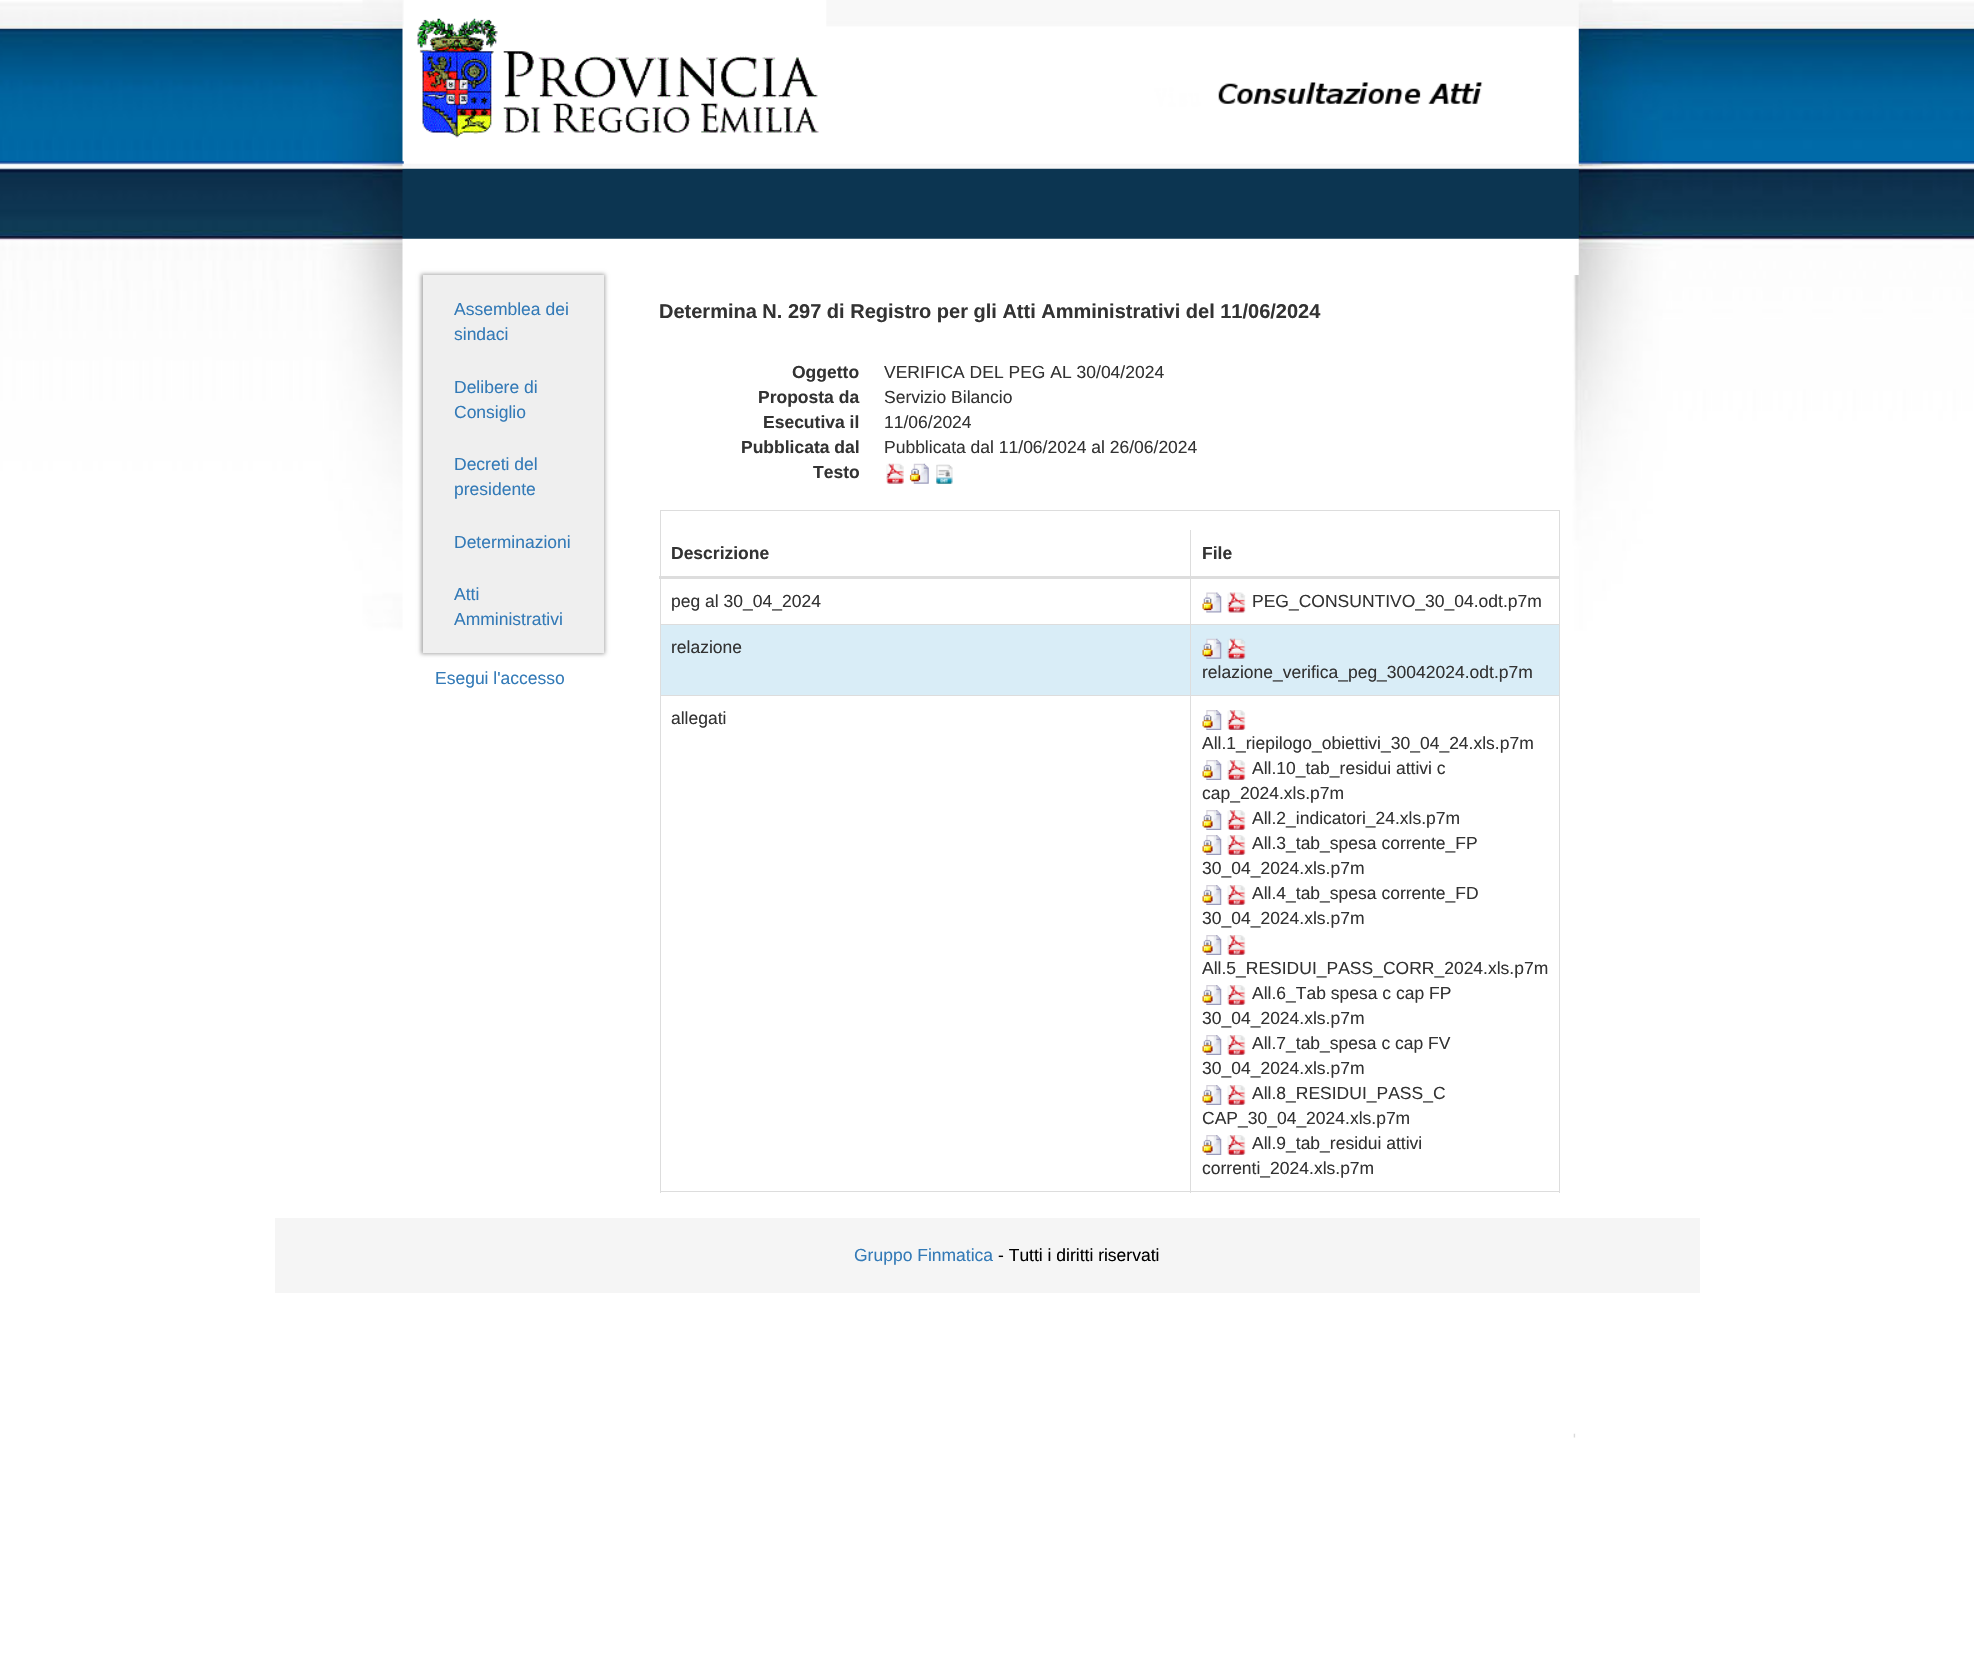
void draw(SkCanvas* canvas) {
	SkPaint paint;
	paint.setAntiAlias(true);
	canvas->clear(0xffffffff);
	canvas->drawImageRect(SkImages::DeferredFromEncodedData(SkData::MakeFromFileName("img1.png")), SkRect::MakeXYWH(0, 0, 1974, 1438), SkSamplingOptions());
	canvas->drawImageRect(SkImages::DeferredFromEncodedData(SkData::MakeFromFileName("img2.png")), SkRect::MakeXYWH(403, 0, 1176, 275), SkSamplingOptions());
	paint.setColor(0xffaaaaaa);
	paint.setMaskFilter(SkMaskFilter::MakeBlur(kNormal_SkBlurStyle, 2));
	canvas->drawRect(SkRect::MakeXYWH(421, 274, 184, 380), paint);
	paint.setMaskFilter(nullptr);
	paint.setColor(0xffefefef);
	canvas->drawRect(SkRect::MakeXYWH(423, 275, 181, 378), paint);
	SkFont f1(fontMgr->matchFamilyStyle("Liberation Sans", SkFontStyle::Normal()), 17.5);
	f1.setSubpixel(true);
	paint.setColor(0xff337ab7);
	canvas->drawString("Assemblea dei", 454, 315, f1, paint);
	canvas->drawString("sindaci", 454, 340, f1, paint);
	canvas->drawString("Delibere di", 454, 393, f1, paint);
	canvas->drawString("Consiglio", 454, 418, f1, paint);
	canvas->drawString("Decreti del", 454, 470, f1, paint);
	canvas->drawString("presidente", 454, 495, f1, paint);
	canvas->drawString("Determinazioni", 454, 548, f1, paint);
	canvas->drawString("Atti", 454, 600, f1, paint);
	canvas->drawString("Amministrativi", 454, 625, f1, paint);
	canvas->drawString("Esegui l'accesso", 435, 684, f1, paint);
	SkFont f2(fontMgr->matchFamilyStyle("Liberation Sans", SkFontStyle::Bold()), 20);
	f2.setSubpixel(true);
	paint.setColor(0xff333333);
	canvas->drawString("Determina N. 297 di Registro per gli Atti Amministrativi del 11/06/2024", 659, 318, f2, paint);
	SkFont f3(fontMgr->matchFamilyStyle("Liberation Sans", SkFontStyle::Bold()), 17.5);
	f3.setSubpixel(true);
	canvas->drawString("Oggetto", 792, 378, f3, paint);
	canvas->drawString("VERIFICA DEL PEG AL 30/04/2024", 884, 378, f1, paint);
	canvas->drawString("Proposta da", 758, 403, f3, paint);
	canvas->drawString("Servizio Bilancio", 884, 403, f1, paint);
	canvas->drawString("Esecutiva il", 763, 428, f3, paint);
	canvas->drawString("11/06/2024", 884, 428, f1, paint);
	canvas->drawString("Pubblicata dal", 741, 453, f3, paint);
	canvas->drawString("Pubblicata dal 11/06/2024 al 26/06/2024", 884, 453, f1, paint);
	canvas->drawString("Testo", 813, 478, f3, paint);
	canvas->drawImageRect(SkImages::DeferredFromEncodedData(SkData::MakeFromFileName("img3.png")), SkRect::MakeXYWH(886, 463, 18, 21), SkSamplingOptions());
	canvas->drawImageRect(SkImages::DeferredFromEncodedData(SkData::MakeFromFileName("img4.png")), SkRect::MakeXYWH(909, 463, 20, 21), SkSamplingOptions());
	canvas->drawImageRect(SkImages::DeferredFromEncodedData(SkData::MakeFromFileName("img5.png")), SkRect::MakeXYWH(936, 464, 17, 20), SkSamplingOptions());
	paint.setColor(0xffdddddd);
	canvas->drawRect(SkRect::MakeXYWH(660, 510, 900, 1), paint);
	canvas->drawRect(SkRect::MakeXYWH(1559, 510, 1, 683), paint);
	canvas->drawRect(SkRect::MakeXYWH(660, 1191, 900, 1), paint);
	canvas->drawRect(SkRect::MakeXYWH(660, 510, 1, 683), paint);
	paint.setColor(0xff333333);
	canvas->drawString("Descrizione", 671, 559, f3, paint);
	paint.setColor(0xffdddddd);
	canvas->drawRect(SkRect::MakeXYWH(1190, 624, 370, 1), paint);
	canvas->drawRect(SkRect::MakeXYWH(1190, 695, 370, 1), paint);
	canvas->drawRect(SkRect::MakeXYWH(1190, 695, 1, 498), paint);
	canvas->drawRect(SkRect::MakeXYWH(660, 695, 531, 1), paint);
	canvas->drawRect(SkRect::MakeXYWH(1190, 624, 1, 72), paint);
	canvas->drawRect(SkRect::MakeXYWH(660, 624, 531, 1), paint);
	canvas->drawRect(SkRect::MakeXYWH(1190, 530, 1, 95), paint);
	canvas->drawRect(SkRect::MakeXYWH(659, 576, 901, 3), paint);
	paint.setColor(0xff333333);
	canvas->drawString("File", 1202, 559, f3, paint);
	canvas->drawString("peg al 30_04_2024", 671, 607, f1, paint);
	canvas->drawImageRect(SkImages::DeferredFromEncodedData(SkData::MakeFromFileName("img6.png")), SkRect::MakeXYWH(1202, 592, 20, 21), SkSamplingOptions());
	canvas->drawImageRect(SkImages::DeferredFromEncodedData(SkData::MakeFromFileName("img7.png")), SkRect::MakeXYWH(1227, 592, 19, 21), SkSamplingOptions());
	canvas->drawString("PEG_CONSUNTIVO_30_04.odt.p7m", 1252, 607, f1, paint);
	paint.setColor(0xffd9edf7);
	canvas->drawRect(SkRect::MakeXYWH(661, 625, 529, 70), paint);
	paint.setColor(0xff333333);
	canvas->drawString("relazione", 671, 653, f1, paint);
	paint.setColor(0xffd9edf7);
	canvas->drawRect(SkRect::MakeXYWH(1191, 625, 368, 70), paint);
	canvas->drawImageRect(SkImages::DeferredFromEncodedData(SkData::MakeFromFileName("img8.png")), SkRect::MakeXYWH(1202, 638, 20, 21), SkSamplingOptions());
	canvas->drawImageRect(SkImages::DeferredFromEncodedData(SkData::MakeFromFileName("img9.png")), SkRect::MakeXYWH(1227, 638, 19, 21), SkSamplingOptions());
	paint.setColor(0xff333333);
	canvas->drawString("relazione_verifica_peg_30042024.odt.p7m", 1202, 678, f1, paint);
	canvas->drawString("allegati", 671, 724, f1, paint);
	canvas->drawImageRect(SkImages::DeferredFromEncodedData(SkData::MakeFromFileName("img10.png")), SkRect::MakeXYWH(1202, 710, 20, 20), SkSamplingOptions());
	canvas->drawImageRect(SkImages::DeferredFromEncodedData(SkData::MakeFromFileName("img11.png")), SkRect::MakeXYWH(1227, 710, 19, 20), SkSamplingOptions());
	canvas->drawString("All.1_riepilogo_obiettivi_30_04_24.xls.p7m", 1202, 749, f1, paint);
	canvas->drawImageRect(SkImages::DeferredFromEncodedData(SkData::MakeFromFileName("img10.png")), SkRect::MakeXYWH(1202, 760, 20, 20), SkSamplingOptions());
	canvas->drawImageRect(SkImages::DeferredFromEncodedData(SkData::MakeFromFileName("img11.png")), SkRect::MakeXYWH(1227, 760, 19, 20), SkSamplingOptions());
	canvas->drawString("All.10_tab_residui attivi c", 1252, 774, f1, paint);
	canvas->drawString("cap_2024.xls.p7m", 1202, 799, f1, paint);
	canvas->drawImageRect(SkImages::DeferredFromEncodedData(SkData::MakeFromFileName("img10.png")), SkRect::MakeXYWH(1202, 810, 20, 20), SkSamplingOptions());
	canvas->drawImageRect(SkImages::DeferredFromEncodedData(SkData::MakeFromFileName("img11.png")), SkRect::MakeXYWH(1227, 810, 19, 20), SkSamplingOptions());
	canvas->drawString("All.2_indicatori_24.xls.p7m", 1252, 824, f1, paint);
	canvas->drawImageRect(SkImages::DeferredFromEncodedData(SkData::MakeFromFileName("img10.png")), SkRect::MakeXYWH(1202, 835, 20, 20), SkSamplingOptions());
	canvas->drawImageRect(SkImages::DeferredFromEncodedData(SkData::MakeFromFileName("img11.png")), SkRect::MakeXYWH(1227, 835, 19, 20), SkSamplingOptions());
	canvas->drawString("All.3_tab_spesa corrente_FP", 1252, 849, f1, paint);
	canvas->drawString("30_04_2024.xls.p7m", 1202, 874, f1, paint);
	canvas->drawImageRect(SkImages::DeferredFromEncodedData(SkData::MakeFromFileName("img10.png")), SkRect::MakeXYWH(1202, 885, 20, 20), SkSamplingOptions());
	canvas->drawImageRect(SkImages::DeferredFromEncodedData(SkData::MakeFromFileName("img11.png")), SkRect::MakeXYWH(1227, 885, 19, 20), SkSamplingOptions());
	canvas->drawString("All.4_tab_spesa corrente_FD", 1252, 899, f1, paint);
	canvas->drawString("30_04_2024.xls.p7m", 1202, 924, f1, paint);
	canvas->drawImageRect(SkImages::DeferredFromEncodedData(SkData::MakeFromFileName("img10.png")), SkRect::MakeXYWH(1202, 935, 20, 20), SkSamplingOptions());
	canvas->drawImageRect(SkImages::DeferredFromEncodedData(SkData::MakeFromFileName("img11.png")), SkRect::MakeXYWH(1227, 935, 19, 20), SkSamplingOptions());
	canvas->drawString("All.5_RESIDUI_PASS_CORR_2024.xls.p7m", 1202, 974, f1, paint);
	canvas->drawImageRect(SkImages::DeferredFromEncodedData(SkData::MakeFromFileName("img10.png")), SkRect::MakeXYWH(1202, 985, 20, 20), SkSamplingOptions());
	canvas->drawImageRect(SkImages::DeferredFromEncodedData(SkData::MakeFromFileName("img11.png")), SkRect::MakeXYWH(1227, 985, 19, 20), SkSamplingOptions());
	canvas->drawString("All.6_Tab spesa c cap FP", 1252, 999, f1, paint);
	canvas->drawString("30_04_2024.xls.p7m", 1202, 1024, f1, paint);
	canvas->drawImageRect(SkImages::DeferredFromEncodedData(SkData::MakeFromFileName("img10.png")), SkRect::MakeXYWH(1202, 1035, 20, 20), SkSamplingOptions());
	canvas->drawImageRect(SkImages::DeferredFromEncodedData(SkData::MakeFromFileName("img11.png")), SkRect::MakeXYWH(1227, 1035, 19, 20), SkSamplingOptions());
	canvas->drawString("All.7_tab_spesa c cap FV", 1252, 1049, f1, paint);
	canvas->drawString("30_04_2024.xls.p7m", 1202, 1074, f1, paint);
	canvas->drawImageRect(SkImages::DeferredFromEncodedData(SkData::MakeFromFileName("img10.png")), SkRect::MakeXYWH(1202, 1085, 20, 20), SkSamplingOptions());
	canvas->drawImageRect(SkImages::DeferredFromEncodedData(SkData::MakeFromFileName("img11.png")), SkRect::MakeXYWH(1227, 1085, 19, 20), SkSamplingOptions());
	canvas->drawString("All.8_RESIDUI_PASS_C", 1252, 1099, f1, paint);
	canvas->drawString("CAP_30_04_2024.xls.p7m", 1202, 1124, f1, paint);
	canvas->drawImageRect(SkImages::DeferredFromEncodedData(SkData::MakeFromFileName("img10.png")), SkRect::MakeXYWH(1202, 1135, 20, 20), SkSamplingOptions());
	canvas->drawImageRect(SkImages::DeferredFromEncodedData(SkData::MakeFromFileName("img11.png")), SkRect::MakeXYWH(1227, 1135, 19, 20), SkSamplingOptions());
	canvas->drawString("All.9_tab_residui attivi", 1252, 1149, f1, paint);
	canvas->drawString("correnti_2024.xls.p7m", 1202, 1174, f1, paint);
	paint.setColor(0xfff5f5f5);
	canvas->drawRect(SkRect::MakeXYWH(275, 1218, 1425, 75), paint);
	paint.setColor(0xff337ab7);
	canvas->drawString("Gruppo Finmatica", 854, 1261, f1, paint);
	paint.setColor(0xff000000);
	canvas->drawString("- Tutti i diritti riservati", 998, 1261, f1, paint);
}
